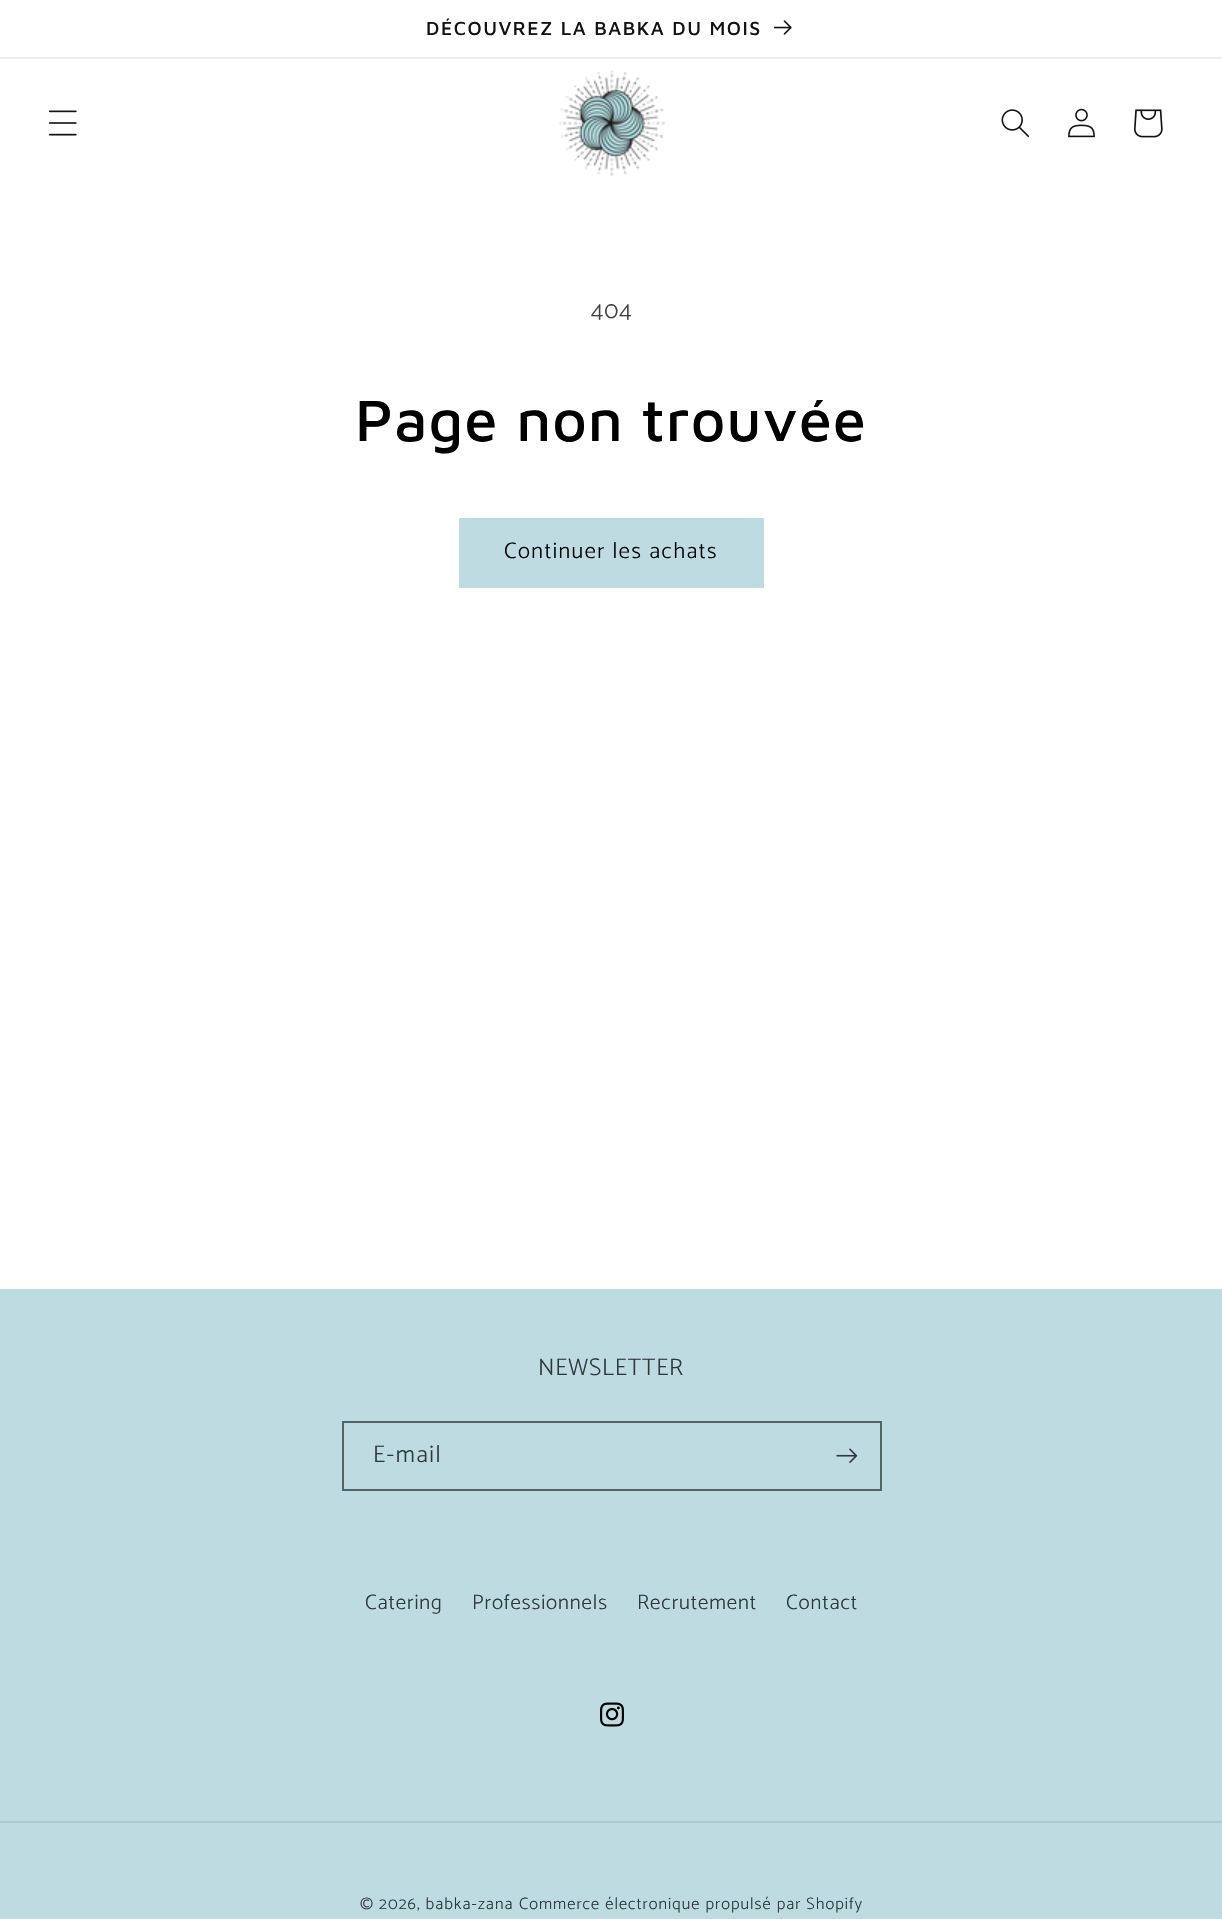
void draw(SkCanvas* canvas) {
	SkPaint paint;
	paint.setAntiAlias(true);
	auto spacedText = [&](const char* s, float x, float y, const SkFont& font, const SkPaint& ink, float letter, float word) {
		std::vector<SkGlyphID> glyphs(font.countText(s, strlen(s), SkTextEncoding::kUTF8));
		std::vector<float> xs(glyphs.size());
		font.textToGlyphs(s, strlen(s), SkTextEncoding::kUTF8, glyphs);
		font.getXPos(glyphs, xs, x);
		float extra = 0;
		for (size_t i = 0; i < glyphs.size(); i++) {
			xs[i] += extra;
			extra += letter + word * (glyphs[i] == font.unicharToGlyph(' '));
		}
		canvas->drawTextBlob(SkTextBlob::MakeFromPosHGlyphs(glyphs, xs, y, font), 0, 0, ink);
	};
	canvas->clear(0xffffffff);
	paint.setColor(0xffececec);
	canvas->drawRect(SkRect::MakeXYWH(0, 57, 1222, 2), paint);
	SkFont f1(fontMgr->matchFamilyStyle("Maven Pro", SkFontStyle(500, SkFontStyle::kNormal_Width, SkFontStyle::kUpright_Slant)), 19.5);
	f1.setSubpixel(true);
	paint.setColor(0xff121212);
	spacedText("DÉCOUVREZ LA BABKA DU MOIS", 426, 35, f1, paint, 1.5, 0);
	canvas->drawImageRect(SkImages::DeferredFromEncodedData(SkData::MakeFromFileName("img1.png")), SkRect::MakeXYWH(774, 20, 18, 15), SkSamplingOptions());
	canvas->drawImageRect(SkImages::DeferredFromEncodedData(SkData::MakeFromFileName("img2.png")), SkRect::MakeXYWH(48, 110, 29, 26), SkSamplingOptions());
	canvas->drawImageRect(SkImages::DeferredFromEncodedData(SkData::MakeFromFileName("img3.png")), SkRect::MakeXYWH(559, 70, 106, 106), SkSamplingOptions());
	canvas->drawImageRect(SkImages::DeferredFromEncodedData(SkData::MakeFromFileName("img4.png")), SkRect::MakeXYWH(1001, 109, 28, 28), SkSamplingOptions());
	canvas->drawImageRect(SkImages::DeferredFromEncodedData(SkData::MakeFromFileName("img5.png")), SkRect::MakeXYWH(1068, 108, 27, 30), SkSamplingOptions());
	canvas->drawImageRect(SkImages::DeferredFromEncodedData(SkData::MakeFromFileName("img6.png")), SkRect::MakeXYWH(1134, 109, 29, 29), SkSamplingOptions());
	SkFont f2(fontMgr->matchFamilyStyle("Catamaran", SkFontStyle(300, SkFontStyle::kNormal_Width, SkFontStyle::kUpright_Slant)), 24);
	f2.setSubpixel(true);
	paint.setColor(0xff404040);
	spacedText("404", 591, 318, f2, paint, 0.9, 0);
	SkFont f3(fontMgr->matchFamilyStyle("Maven Pro", SkFontStyle(500, SkFontStyle::kNormal_Width, SkFontStyle::kUpright_Slant)), 60);
	f3.setSubpixel(true);
	paint.setColor(0xff000000);
	spacedText("Page non trouvée", 355, 441, f3, paint, 0.9, 0);
	paint.setColor(0xffbddbe1);
	canvas->drawRect(SkRect::MakeXYWH(459, 518, 305, 70), paint);
	SkFont f4(fontMgr->matchFamilyStyle("Catamaran", SkFontStyle(300, SkFontStyle::kNormal_Width, SkFontStyle::kUpright_Slant)), 22.5);
	f4.setSubpixel(true);
	paint.setColor(0xff000000);
	spacedText("Continuer les achats", 504, 558, f4, paint, 1.5, 0);
	paint.setColor(0xffbddbe1);
	canvas->drawRect(SkRect::MakeXYWH(0, 1289, 1222, 630), paint);
	paint.setColor(0xff2f3738);
	spacedText("NEWSLETTER", 538, 1375, f2, paint, 0.9, 0);
	paint.setStroke(true);
	paint.setStrokeWidth(2);
	paint.setColor(0xff556365);
	canvas->drawRect(SkRect::MakeXYWH(343, 1422, 538, 68), paint);
	paint.setStroke(false);
	paint.setColor(0xff2f3738);
	spacedText("E-mail", 373, 1462, f2, paint, 1.5, 0);
	canvas->drawImageRect(SkImages::DeferredFromEncodedData(SkData::MakeFromFileName("img7.png")), SkRect::MakeXYWH(836, 1448, 22, 15), SkSamplingOptions());
	SkFont f5(fontMgr->matchFamilyStyle("Catamaran", SkFontStyle(300, SkFontStyle::kNormal_Width, SkFontStyle::kUpright_Slant)), 21);
	f5.setSubpixel(true);
	spacedText("Catering", 365, 1609, f5, paint, 0.9, 0);
	spacedText("Professionnels", 472, 1609, f5, paint, 0.9, 0);
	spacedText("Recrutement", 637, 1609, f5, paint, 0.9, 0);
	spacedText("Contact", 786, 1609, f5, paint, 0.9, 0);
	canvas->drawImageRect(SkImages::DeferredFromEncodedData(SkData::MakeFromFileName("img8.png")), SkRect::MakeXYWH(600, 1702, 24, 25), SkSamplingOptions());
	paint.setColor(0xffaec9cf);
	canvas->drawRect(SkRect::MakeXYWH(0, 1821, 1222, 2), paint);
	SkFont f6(fontMgr->matchFamilyStyle("Catamaran", SkFontStyle(300, SkFontStyle::kNormal_Width, SkFontStyle::kUpright_Slant)), 16.5);
	f6.setSubpixel(true);
	paint.setColor(0xff2f3738);
	spacedText("© 2026, babka-zana", 360, 1909, f6, paint, 1.05, 0);
	spacedText("Commerce électronique propulsé par Shopify", 519, 1909, f6, paint, 1.05, 0);
}
